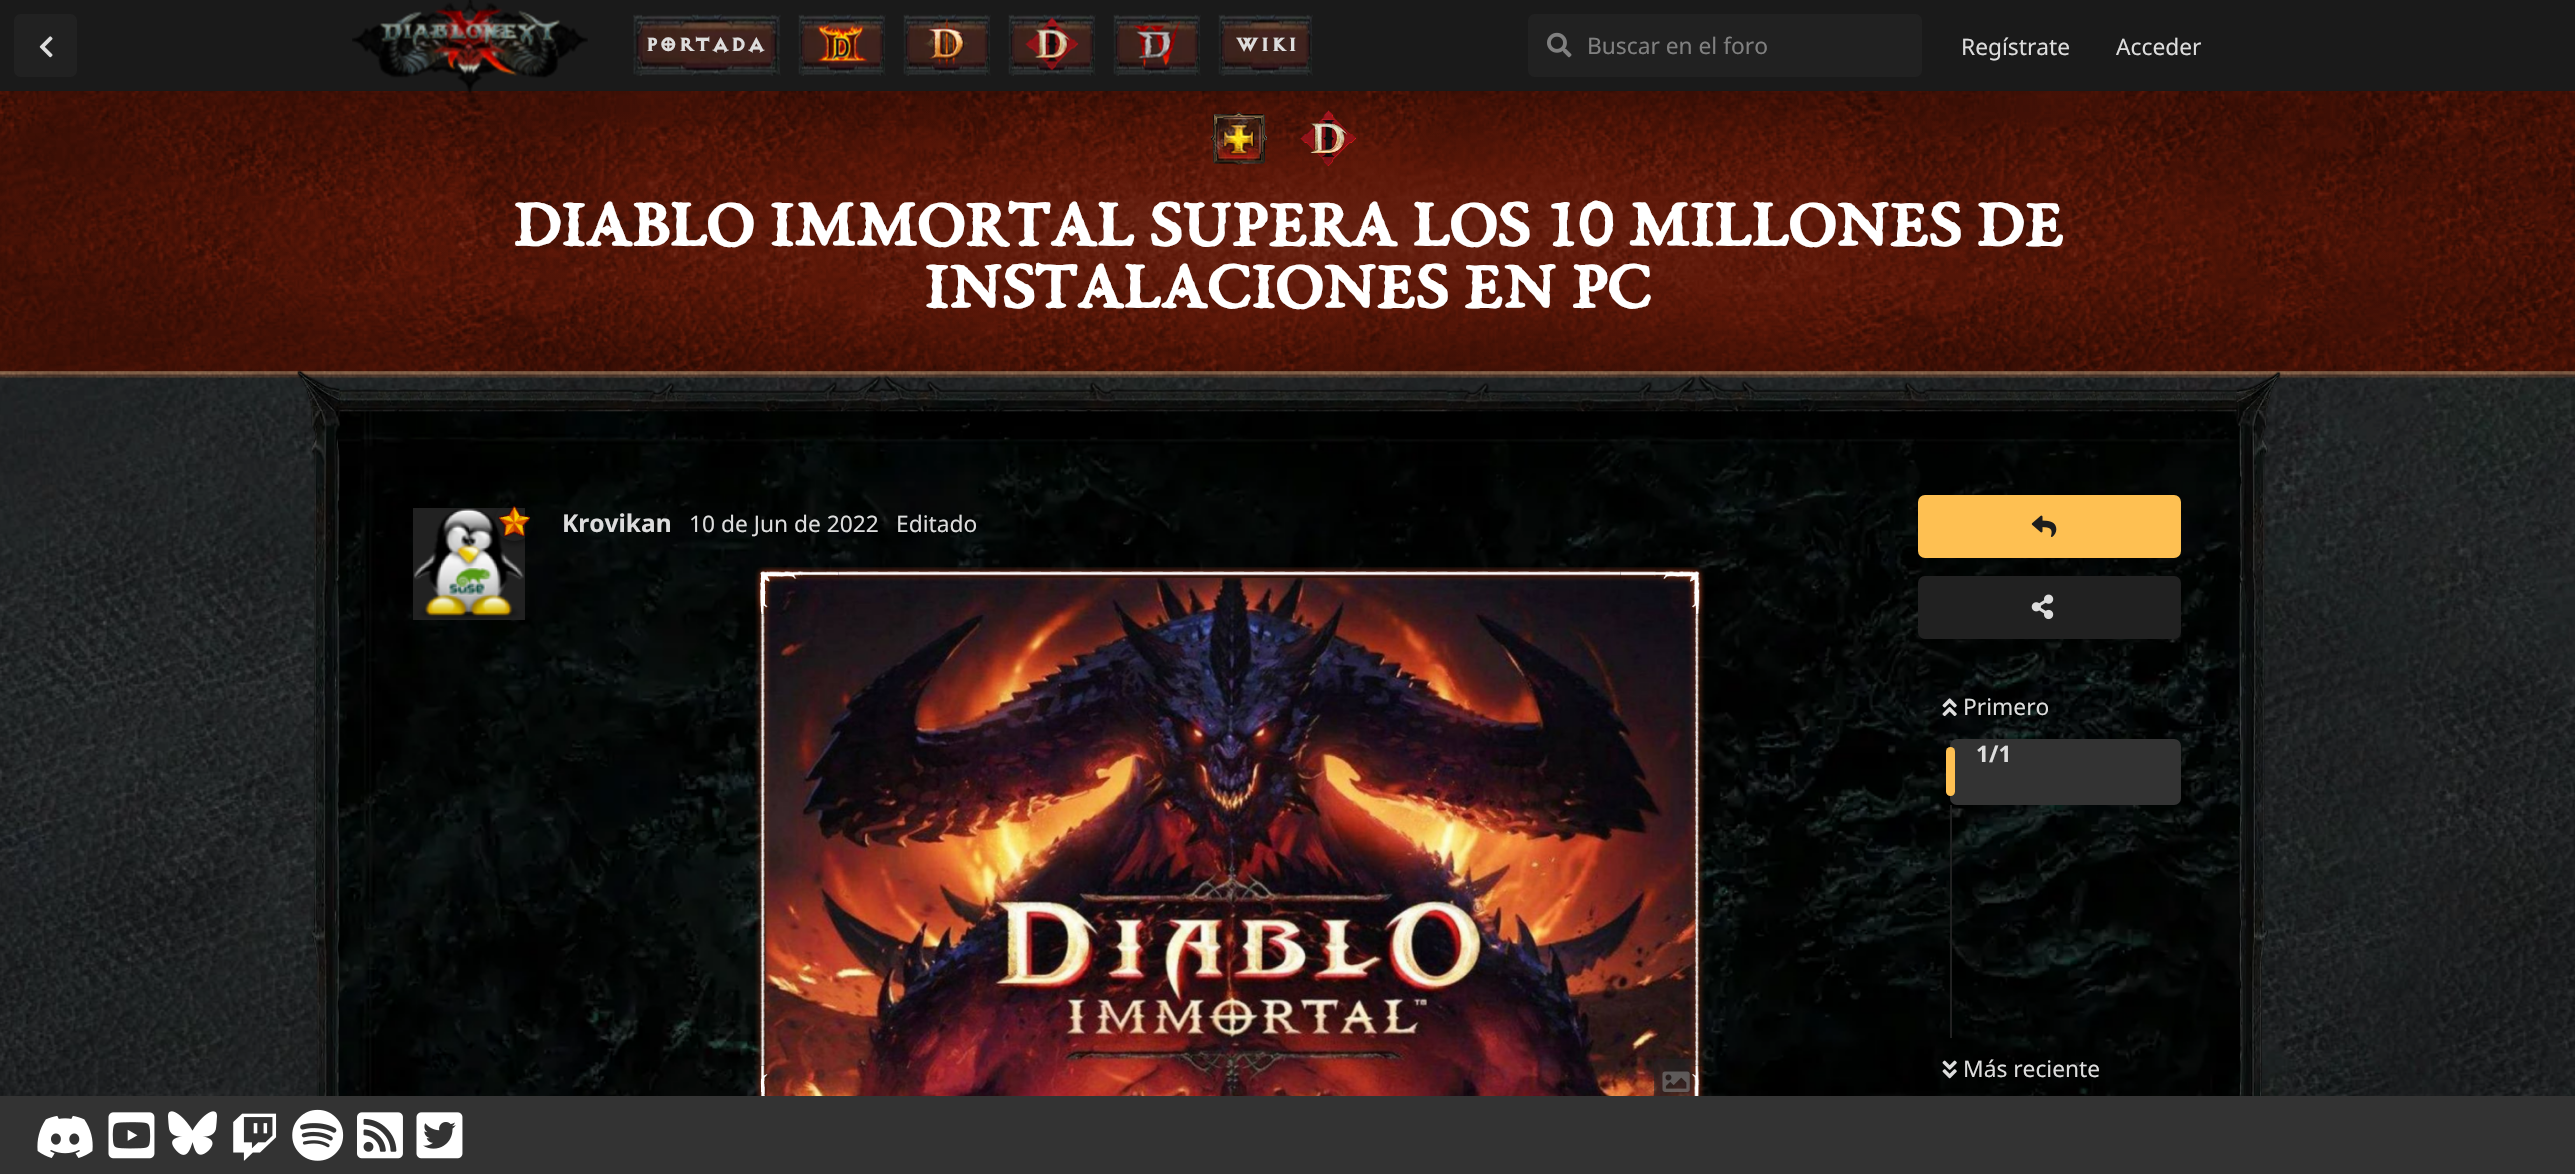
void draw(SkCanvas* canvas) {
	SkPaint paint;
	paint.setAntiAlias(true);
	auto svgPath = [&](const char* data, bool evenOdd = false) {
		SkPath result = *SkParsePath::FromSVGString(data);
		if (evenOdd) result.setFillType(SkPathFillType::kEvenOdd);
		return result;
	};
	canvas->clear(0xffffffff);
	paint.setColor(0xff1a1a1a);
	canvas->drawRect(SkRect::MakeXYWH(0, 0, 2575, 91), paint);
	paint.setColor(0xff212121);
	canvas->drawRoundRect(SkRect::MakeXYWH(14, 14, 63, 63), 7, 7, paint);
	canvas->drawImageRect(SkImages::DeferredFromEncodedData(SkData::MakeFromFileName("img1.png")), SkRect::MakeXYWH(39, 36, 14, 22), SkSamplingOptions());
	canvas->drawImageRect(SkImages::DeferredFromEncodedData(SkData::MakeFromFileName("img13.png")), SkRect::MakeXYWH(0, 91, 2575, 286), SkSamplingOptions());
	canvas->drawImageRect(SkImages::DeferredFromEncodedData(SkData::MakeFromFileName("img2.png")), SkRect::MakeXYWH(352, 0, 236, 94), SkSamplingOptions());
	canvas->drawImageRect(SkImages::DeferredFromEncodedData(SkData::MakeFromFileName("img3.png")), SkRect::MakeXYWH(633, 14, 148, 62), SkSamplingOptions());
	SkFont f1(fontMgr->matchFamilyStyle("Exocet", SkFontStyle(900, SkFontStyle::kNormal_Width, SkFontStyle::kUpright_Slant)), 22.75);
	f1.setSubpixel(true);
	paint.setColor(0xffdddddd);
	canvas->drawString("PORTADA", 645, 51, f1, paint);
	canvas->drawImageRect(SkImages::DeferredFromEncodedData(SkData::MakeFromFileName("img4.png")), SkRect::MakeXYWH(798, 14, 88, 62), SkSamplingOptions());
	canvas->drawImageRect(SkImages::DeferredFromEncodedData(SkData::MakeFromFileName("img5.png")), SkRect::MakeXYWH(817, 23, 51, 40), SkSamplingOptions());
	canvas->drawImageRect(SkImages::DeferredFromEncodedData(SkData::MakeFromFileName("img6.png")), SkRect::MakeXYWH(903, 14, 88, 62), SkSamplingOptions());
	canvas->drawImageRect(SkImages::DeferredFromEncodedData(SkData::MakeFromFileName("img7.png")), SkRect::MakeXYWH(924, 18, 46, 51), SkSamplingOptions());
	canvas->drawImageRect(SkImages::DeferredFromEncodedData(SkData::MakeFromFileName("img6.png")), SkRect::MakeXYWH(1008, 14, 88, 62), SkSamplingOptions());
	canvas->drawImageRect(SkImages::DeferredFromEncodedData(SkData::MakeFromFileName("img8.png")), SkRect::MakeXYWH(1025, 17, 54, 54), SkSamplingOptions());
	canvas->drawImageRect(SkImages::DeferredFromEncodedData(SkData::MakeFromFileName("img6.png")), SkRect::MakeXYWH(1113, 14, 88, 62), SkSamplingOptions());
	canvas->drawImageRect(SkImages::DeferredFromEncodedData(SkData::MakeFromFileName("img9.png")), SkRect::MakeXYWH(1133, 20, 48, 48), SkSamplingOptions());
	canvas->drawImageRect(SkImages::DeferredFromEncodedData(SkData::MakeFromFileName("img10.png")), SkRect::MakeXYWH(1218, 14, 95, 62), SkSamplingOptions());
	canvas->drawString("WIKI", 1235, 51, f1, paint);
	paint.setColor(0xff212121);
	canvas->drawRoundRect(SkRect::MakeXYWH(1528, 14, 394, 63), 7, 7, paint);
	canvas->drawImageRect(SkImages::DeferredFromEncodedData(SkData::MakeFromFileName("img11.png")), SkRect::MakeXYWH(1547, 32, 25, 26), SkSamplingOptions());
	SkFont f2(fontMgr->matchFamilyStyle("Noto Sans", SkFontStyle::Normal()), 22.75);
	f2.setSubpixel(true);
	paint.setColor(0xff808080);
	canvas->drawString("Buscar en el foro", 1587, 54, f2, paint);
	paint.setColor(0xffdddddd);
	canvas->drawString("Regístrate", 1961, 55, f2, paint);
	canvas->drawString("Acceder", 2116, 55, f2, paint);
	canvas->drawImageRect(SkImages::DeferredFromEncodedData(SkData::MakeFromFileName("img12.png")), SkRect::MakeXYWH(0, 378, 2575, 718), SkSamplingOptions());
	canvas->drawImageRect(SkImages::DeferredFromEncodedData(SkData::MakeFromFileName("img14.png")), SkRect::MakeXYWH(1211, 112, 56, 53), SkSamplingOptions());
	canvas->drawImageRect(SkImages::DeferredFromEncodedData(SkData::MakeFromFileName("img15.png")), SkRect::MakeXYWH(1300, 110, 57, 57), SkSamplingOptions());
	SkFont f3(fontMgr->matchFamilyStyle("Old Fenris", SkFontStyle::Bold()), 61.25);
	f3.setSubpixel(true);
	paint.setColor(0xffffffff);
	canvas->drawString("DIABLO IMMORTAL SUPERA LOS 10 MILLONES DE", 513, 246, f3, paint);
	canvas->drawString("INSTALACIONES EN PC", 924, 308, f3, paint);
	canvas->drawImageRect(SkImages::DeferredFromEncodedData(SkData::MakeFromFileName("img16.png")), SkRect::MakeXYWH(0, 371, 2575, 7), SkSamplingOptions());
	canvas->drawImageRect(SkImages::DeferredFromEncodedData(SkData::MakeFromFileName("img17.png")), SkRect::MakeXYWH(325, 395, 1926, 701), SkSamplingOptions());
	canvas->drawImageRect(SkImages::DeferredFromEncodedData(SkData::MakeFromFileName("img18.png")), SkRect::MakeXYWH(296, 370, 1985, 726), SkSamplingOptions());
	paint.setColor(0xff212121);
	canvas->drawRect(SkRect::MakeXYWH(413, 508, 112, 112), paint);
	canvas->drawImageRect(SkImages::DeferredFromEncodedData(SkData::MakeFromFileName("img20.png")), SkRect::MakeXYWH(414, 508, 110, 111), SkSamplingOptions());
	canvas->save();
	canvas->clipPath(svgPath("M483 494H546V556H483ZM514.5 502C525.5 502 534 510.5 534 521.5C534 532.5 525.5 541 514.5 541C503.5 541 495 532.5 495 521.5C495 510.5 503.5 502 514.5 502Z", true), true);
	paint.setColor(0x80000000);
	paint.setMaskFilter(SkMaskFilter::MakeBlur(kNormal_SkBlurStyle, 3.5));
	canvas->drawRoundRect(SkRect::MakeXYWH(495, 506, 39, 38), 19, 19, paint);
	paint.setMaskFilter(nullptr);
	canvas->restore();
	canvas->drawImageRect(SkImages::DeferredFromEncodedData(SkData::MakeFromFileName("img19.png")), SkRect::MakeXYWH(498, 506, 32, 31), SkSamplingOptions());
	SkFont f4(fontMgr->matchFamilyStyle("Noto Sans", SkFontStyle::Bold()), 24.5);
	f4.setSubpixel(true);
	paint.setColor(0xffdddddd);
	canvas->drawString("Krovikan", 562, 532, f4, paint);
	canvas->drawString("10 de Jun de 2022", 689, 532, f2, paint);
	canvas->drawString("Editado", 896, 532, f2, paint);
	canvas->drawImageRect(SkImages::DeferredFromEncodedData(SkData::MakeFromFileName("img22.png")), SkRect::MakeXYWH(764, 577, 934, 519), SkSamplingOptions());
	paint.setColor(0x99212121);
	canvas->drawPath(svgPath("M1661 1059H1698V1103H1654V1066C1654 1062 1657 1059 1661 1059Z"), paint);
	canvas->drawImageRect(SkImages::DeferredFromEncodedData(SkData::MakeFromFileName("img23.png")), SkRect::MakeXYWH(1662, 1071, 28, 21), SkSamplingOptions());
	canvas->drawImageRect(SkImages::DeferredFromEncodedData(SkData::MakeFromFileName("img21.png")), SkRect::MakeXYWH(755, 567, 951, 529), SkSamplingOptions());
	paint.setColor(0xfffec052);
	canvas->drawRoundRect(SkRect::MakeXYWH(1918, 495, 263, 63), 7, 7, paint);
	canvas->drawImageRect(SkImages::DeferredFromEncodedData(SkData::MakeFromFileName("img24.png")), SkRect::MakeXYWH(2031, 515, 26, 22), SkSamplingOptions());
	paint.setColor(0xff212121);
	canvas->drawRoundRect(SkRect::MakeXYWH(1918, 576, 263, 63), 7, 7, paint);
	canvas->drawImageRect(SkImages::DeferredFromEncodedData(SkData::MakeFromFileName("img25.png")), SkRect::MakeXYWH(2031, 594, 23, 26), SkSamplingOptions());
	canvas->drawImageRect(SkImages::DeferredFromEncodedData(SkData::MakeFromFileName("img26.png")), SkRect::MakeXYWH(1942, 698, 15, 18), SkSamplingOptions());
	paint.setColor(0xffdddddd);
	canvas->drawString("Primero", 1963, 715, f2, paint);
	paint.setColor(0xff333333);
	canvas->drawRoundRect(SkRect::MakeXYWH(1950, 739, 231, 66), 7, 7, paint);
	paint.setColor(0xfffec052);
	canvas->drawRoundRect(SkRect::MakeXYWH(1946, 747, 9, 49), 4.5, 4.5, paint);
	SkFont f5(fontMgr->matchFamilyStyle("Noto Sans", SkFontStyle::Bold()), 22.75);
	f5.setSubpixel(true);
	paint.setColor(0xffdddddd);
	canvas->drawString("1/1", 1976, 762, f5, paint);
	paint.setColor(0xff212121);
	canvas->drawRect(SkRect::MakeXYWH(1950, 805, 2, 233), paint);
	canvas->drawImageRect(SkImages::DeferredFromEncodedData(SkData::MakeFromFileName("img27.png")), SkRect::MakeXYWH(1942, 1060, 15, 19), SkSamplingOptions());
	paint.setColor(0xffdddddd);
	canvas->drawString("Más reciente", 1963, 1077, f2, paint);
	paint.setColor(0xff333333);
	canvas->drawRect(SkRect::MakeXYWH(0, 1096, 2575, 78), paint);
	canvas->drawImageRect(SkImages::DeferredFromEncodedData(SkData::MakeFromFileName("img28.png")), SkRect::MakeXYWH(37, 1115, 56, 43), SkSamplingOptions());
	canvas->drawImageRect(SkImages::DeferredFromEncodedData(SkData::MakeFromFileName("img29.png")), SkRect::MakeXYWH(108, 1112, 47, 47), SkSamplingOptions());
	canvas->drawImageRect(SkImages::DeferredFromEncodedData(SkData::MakeFromFileName("img30.png")), SkRect::MakeXYWH(168, 1111, 49, 44), SkSamplingOptions());
	canvas->drawImageRect(SkImages::DeferredFromEncodedData(SkData::MakeFromFileName("img31.png")), SkRect::MakeXYWH(233, 1113, 44, 48), SkSamplingOptions());
	canvas->drawImageRect(SkImages::DeferredFromEncodedData(SkData::MakeFromFileName("img32.png")), SkRect::MakeXYWH(292, 1109, 52, 52), SkSamplingOptions());
	canvas->drawImageRect(SkImages::DeferredFromEncodedData(SkData::MakeFromFileName("img33.png")), SkRect::MakeXYWH(357, 1112, 46, 47), SkSamplingOptions());
	canvas->drawImageRect(SkImages::DeferredFromEncodedData(SkData::MakeFromFileName("img34.png")), SkRect::MakeXYWH(416, 1112, 47, 47), SkSamplingOptions());
}
